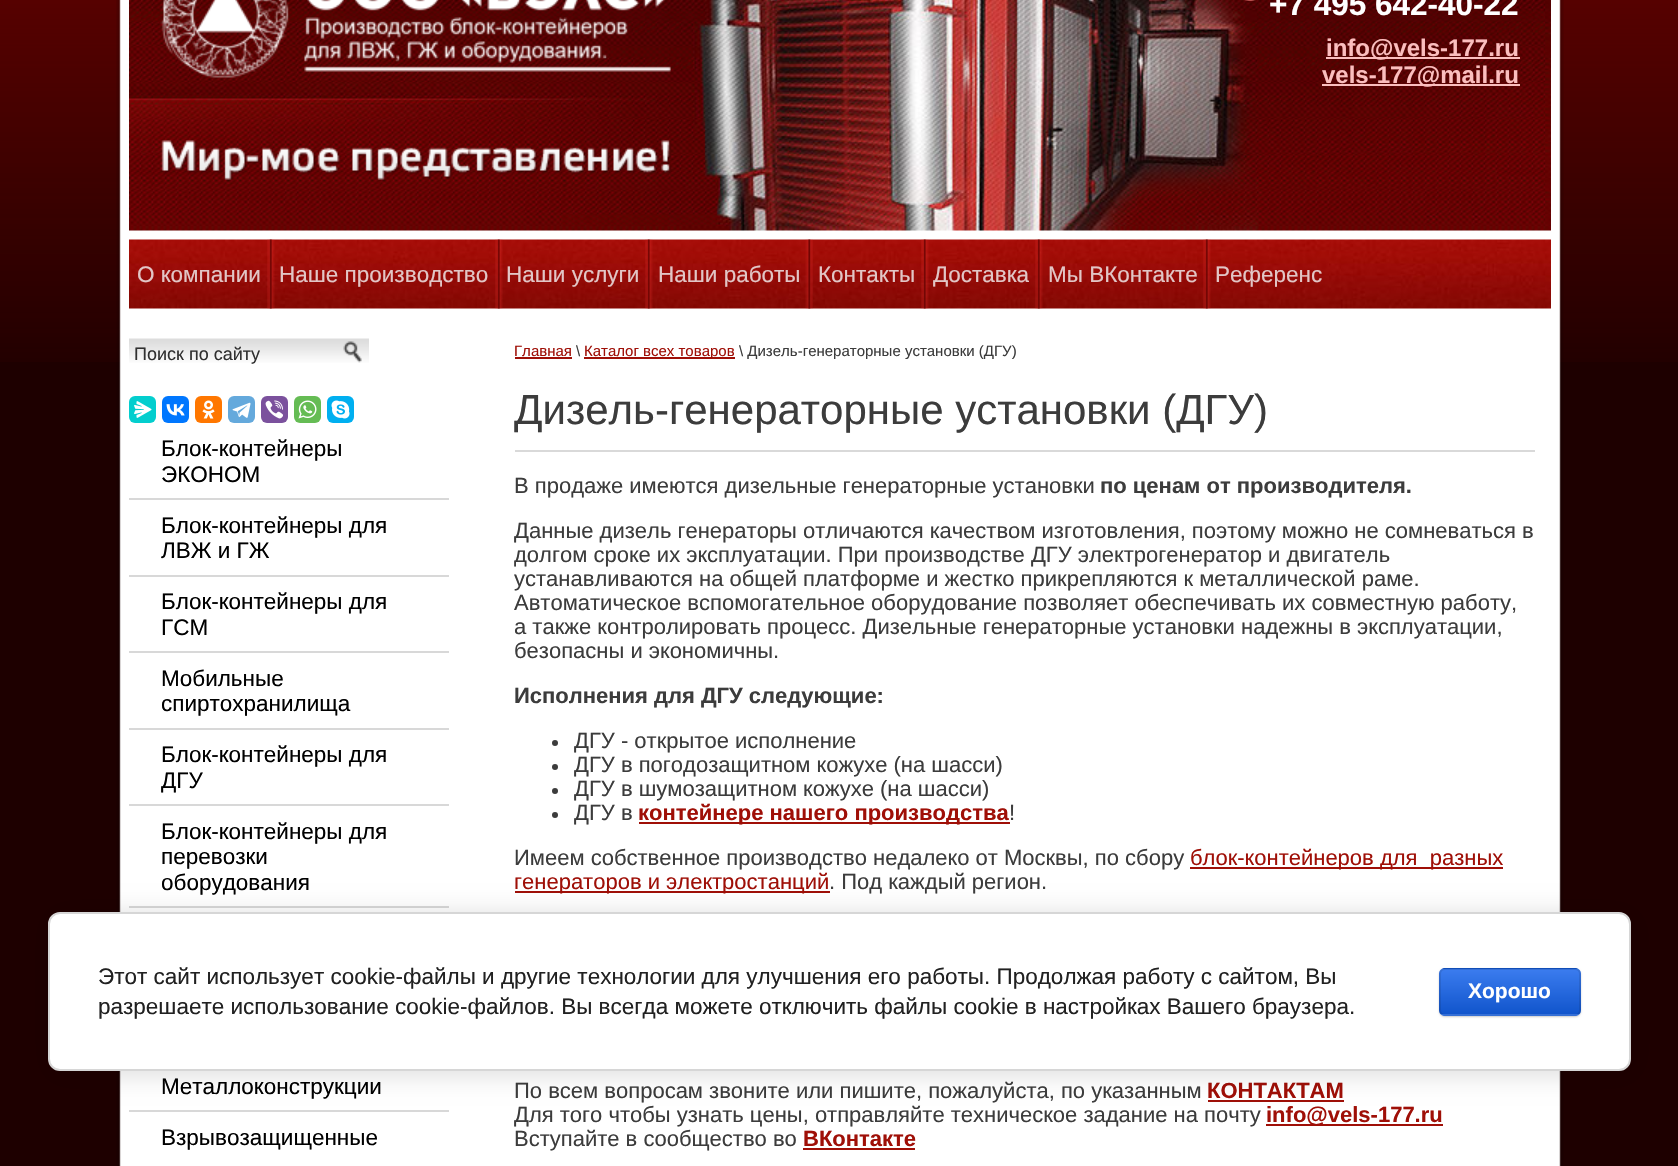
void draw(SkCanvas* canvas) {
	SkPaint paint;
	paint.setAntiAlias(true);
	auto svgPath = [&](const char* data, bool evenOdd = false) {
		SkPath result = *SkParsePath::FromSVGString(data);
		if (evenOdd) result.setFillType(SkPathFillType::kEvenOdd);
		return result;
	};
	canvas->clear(0xff1e0000);
	canvas->drawImageRect(SkImages::DeferredFromEncodedData(SkData::MakeFromFileName("img1.png")), SkRect::MakeXYWH(0, 0, 1678, 362), SkSamplingOptions());
	canvas->drawImageRect(SkImages::DeferredFromEncodedData(SkData::MakeFromFileName("img2.png")), SkRect::MakeXYWH(116, 0, 1448, 1166), SkSamplingOptions());
	canvas->drawImageRect(SkImages::DeferredFromEncodedData(SkData::MakeFromFileName("img3.png")), SkRect::MakeXYWH(129, 0, 1422, 231), SkSamplingOptions());
	canvas->drawImageRect(SkImages::DeferredFromEncodedData(SkData::MakeFromFileName("img4.png")), SkRect::MakeXYWH(160, 0, 511, 78), SkSamplingOptions());
	canvas->drawImageRect(SkImages::DeferredFromEncodedData(SkData::MakeFromFileName("img5.png")), SkRect::MakeXYWH(1243, 0, 13, 1), SkSamplingOptions());
	SkFont f1(fontMgr->matchFamilyStyle("Liberation Sans", SkFontStyle::Bold()), 31.5);
	f1.setSubpixel(true);
	paint.setColor(0xffffffff);
	canvas->drawString("+7 495 642-40-22", 1269, 15, f1, paint);
	paint.setColor(0xfffbbebe);
	canvas->drawRect(SkRect::MakeXYWH(1326, 57, 194, 2), paint);
	SkFont f2(fontMgr->matchFamilyStyle("Liberation Sans", SkFontStyle::Bold()), 24);
	f2.setSubpixel(true);
	canvas->drawString("info@vels-177.ru", 1326, 56, f2, paint);
	canvas->drawRect(SkRect::MakeXYWH(1322, 84, 198, 2), paint);
	canvas->drawString("vels-177@mail.ru", 1322, 83, f2, paint);
	canvas->drawImageRect(SkImages::DeferredFromEncodedData(SkData::MakeFromFileName("img6.png")), SkRect::MakeXYWH(161, 140, 511, 42), SkSamplingOptions());
	canvas->drawImageRect(SkImages::DeferredFromEncodedData(SkData::MakeFromFileName("img7.png")), SkRect::MakeXYWH(129, 239, 1422, 70), SkSamplingOptions());
	SkFont f3(fontMgr->matchFamilyStyle("Liberation Sans", SkFontStyle::Normal()), 22.5);
	f3.setSubpixel(true);
	paint.setColor(0xffe2c6c6);
	canvas->drawString("О компании", 137, 282, f3, paint);
	canvas->drawImageRect(SkImages::DeferredFromEncodedData(SkData::MakeFromFileName("img8.png")), SkRect::MakeXYWH(267, 239, 8, 70), SkSamplingOptions());
	canvas->drawString("Наше производство", 279, 282, f3, paint);
	canvas->drawImageRect(SkImages::DeferredFromEncodedData(SkData::MakeFromFileName("img9.png")), SkRect::MakeXYWH(495, 239, 8, 70), SkSamplingOptions());
	canvas->drawString("Наши услуги", 506, 282, f3, paint);
	canvas->drawImageRect(SkImages::DeferredFromEncodedData(SkData::MakeFromFileName("img10.png")), SkRect::MakeXYWH(645, 239, 8, 70), SkSamplingOptions());
	canvas->drawString("Наши работы", 658, 282, f3, paint);
	canvas->drawImageRect(SkImages::DeferredFromEncodedData(SkData::MakeFromFileName("img11.png")), SkRect::MakeXYWH(805, 239, 8, 70), SkSamplingOptions());
	canvas->drawString("Контакты", 818, 282, f3, paint);
	canvas->drawImageRect(SkImages::DeferredFromEncodedData(SkData::MakeFromFileName("img12.png")), SkRect::MakeXYWH(921, 239, 8, 70), SkSamplingOptions());
	canvas->drawString("Доставка", 933, 282, f3, paint);
	canvas->drawImageRect(SkImages::DeferredFromEncodedData(SkData::MakeFromFileName("img13.png")), SkRect::MakeXYWH(1035, 239, 8, 70), SkSamplingOptions());
	canvas->drawString("Мы ВКонтакте", 1048, 282, f3, paint);
	canvas->drawImageRect(SkImages::DeferredFromEncodedData(SkData::MakeFromFileName("img14.png")), SkRect::MakeXYWH(1203, 239, 8, 70), SkSamplingOptions());
	canvas->drawString("Референс", 1215, 282, f3, paint);
	canvas->drawImageRect(SkImages::DeferredFromEncodedData(SkData::MakeFromFileName("img15.png")), SkRect::MakeXYWH(129, 338, 240, 25), SkSamplingOptions());
	SkFont f4(fontMgr->matchFamilyStyle("Liberation Sans", SkFontStyle::Normal()), 18);
	f4.setSubpixel(true);
	paint.setColor(0xff303030);
	canvas->drawString("Поиск по сайту", 134, 360, f4, paint);
	paint.setColor(0xff03cece);
	canvas->drawRoundRect(SkRect::MakeXYWH(129, 396, 27, 27), 6, 6, paint);
	canvas->drawImageRect(SkImages::DeferredFromEncodedData(SkData::MakeFromFileName("img16.png")), SkRect::MakeXYWH(134, 401, 18, 17), SkSamplingOptions());
	paint.setColor(0xff0077ff);
	canvas->drawRoundRect(SkRect::MakeXYWH(162, 396, 27, 27), 6, 6, paint);
	canvas->drawImageRect(SkImages::DeferredFromEncodedData(SkData::MakeFromFileName("img17.png")), SkRect::MakeXYWH(166, 404, 19, 12), SkSamplingOptions());
	paint.setColor(0xffff7700);
	canvas->drawRoundRect(SkRect::MakeXYWH(195, 396, 27, 27), 6, 6, paint);
	canvas->drawImageRect(SkImages::DeferredFromEncodedData(SkData::MakeFromFileName("img18.png")), SkRect::MakeXYWH(202, 400, 13, 19), SkSamplingOptions());
	paint.setColor(0xff64a9dc);
	canvas->drawRoundRect(SkRect::MakeXYWH(228, 396, 27, 27), 6, 6, paint);
	canvas->drawImageRect(SkImages::DeferredFromEncodedData(SkData::MakeFromFileName("img19.png")), SkRect::MakeXYWH(232, 402, 19, 16), SkSamplingOptions());
	paint.setColor(0xff7b519d);
	canvas->drawRoundRect(SkRect::MakeXYWH(261, 396, 27, 27), 6, 6, paint);
	canvas->drawImageRect(SkImages::DeferredFromEncodedData(SkData::MakeFromFileName("img20.png")), SkRect::MakeXYWH(265, 400, 18, 19), SkSamplingOptions());
	paint.setColor(0xff65bc54);
	canvas->drawRoundRect(SkRect::MakeXYWH(294, 396, 27, 27), 6, 6, paint);
	canvas->drawImageRect(SkImages::DeferredFromEncodedData(SkData::MakeFromFileName("img21.png")), SkRect::MakeXYWH(298, 400, 19, 19), SkSamplingOptions());
	paint.setColor(0xff00aff0);
	canvas->drawRoundRect(SkRect::MakeXYWH(327, 396, 27, 27), 6, 6, paint);
	canvas->drawImageRect(SkImages::DeferredFromEncodedData(SkData::MakeFromFileName("img22.png")), SkRect::MakeXYWH(331, 400, 19, 19), SkSamplingOptions());
	paint.setColor(0xff000000);
	canvas->drawString("Блок-контейнеры", 161, 456, f3, paint);
	canvas->drawString("ЭКОНОМ", 161, 482, f3, paint);
	paint.setColor(0xffd8d8d8);
	canvas->drawRect(SkRect::MakeXYWH(129, 498, 320, 2), paint);
	paint.setColor(0xff000000);
	canvas->drawString("Блок-контейнеры для", 161, 533, f3, paint);
	canvas->drawString("ЛВЖ и ГЖ", 161, 558, f3, paint);
	paint.setColor(0xffd8d8d8);
	canvas->drawRect(SkRect::MakeXYWH(129, 575, 320, 2), paint);
	paint.setColor(0xff000000);
	canvas->drawString("Блок-контейнеры для", 161, 609, f3, paint);
	canvas->drawString("ГСМ", 161, 635, f3, paint);
	paint.setColor(0xffd8d8d8);
	canvas->drawRect(SkRect::MakeXYWH(129, 651, 320, 2), paint);
	paint.setColor(0xff000000);
	canvas->drawString("Мобильные", 161, 686, f3, paint);
	canvas->drawString("спиртохранилища", 161, 711, f3, paint);
	paint.setColor(0xffd8d8d8);
	canvas->drawRect(SkRect::MakeXYWH(129, 728, 320, 2), paint);
	paint.setColor(0xff000000);
	canvas->drawString("Блок-контейнеры для", 161, 762, f3, paint);
	canvas->drawString("ДГУ", 161, 788, f3, paint);
	paint.setColor(0xffd8d8d8);
	canvas->drawRect(SkRect::MakeXYWH(129, 804, 320, 2), paint);
	paint.setColor(0xff000000);
	canvas->drawString("Блок-контейнеры для", 161, 839, f3, paint);
	canvas->drawString("перевозки", 161, 864, f3, paint);
	canvas->drawString("оборудования", 161, 890, f3, paint);
	paint.setColor(0xffd8d8d8);
	canvas->drawRect(SkRect::MakeXYWH(129, 906, 320, 2), paint);
	paint.setColor(0xff000000);
	canvas->drawString("Металлоконструкции", 161, 1094, f3, paint);
	paint.setColor(0xffd8d8d8);
	canvas->drawRect(SkRect::MakeXYWH(129, 1110, 320, 2), paint);
	paint.setColor(0xff000000);
	canvas->drawString("Взрывозащищенные", 161, 1145, f3, paint);
	SkFont f5(fontMgr->matchFamilyStyle("Liberation Sans", SkFontStyle::Normal()), 15);
	f5.setSubpixel(true);
	paint.setColor(0xff9f0f07);
	canvas->drawString("Главная", 514, 356, f5, paint);
	canvas->drawRect(SkRect::MakeXYWH(515, 357, 57, 2), paint);
	paint.setColor(0xff3c3c3c);
	canvas->drawString("\\", 576, 356, f5, paint);
	paint.setColor(0xff9f0f07);
	canvas->drawRect(SkRect::MakeXYWH(584, 357, 151, 2), paint);
	canvas->drawString("Каталог всех товаров", 584, 356, f5, paint);
	paint.setColor(0xff3c3c3c);
	canvas->drawString("\\ Дизель-генераторные установки (ДГУ)", 739, 356, f5, paint);
	paint.setColor(0xffd9d9d9);
	canvas->drawRect(SkRect::MakeXYWH(515, 450, 1020, 2), paint);
	SkFont f6(fontMgr->matchFamilyStyle("Liberation Sans", SkFontStyle::Normal()), 42);
	f6.setSubpixel(true);
	paint.setColor(0xff3c3c3c);
	canvas->drawString("Дизель-генераторные установки (ДГУ)", 514, 424, f6, paint);
	SkFont f7(fontMgr->matchFamilyStyle("Liberation Sans", SkFontStyle::Normal()), 22);
	f7.setSubpixel(true);
	canvas->drawString("В продаже имеются дизельные генераторные установки", 514, 493, f7, paint);
	SkFont f8(fontMgr->matchFamilyStyle("Liberation Sans", SkFontStyle::Bold()), 22);
	f8.setSubpixel(true);
	canvas->drawString("по ценам от производителя.", 1100, 493, f8, paint);
	canvas->drawString("Данные дизель генераторы отличаются качеством изготовления, поэтому можно не сомневаться в", 514, 538, f7, paint);
	canvas->drawString("долгом сроке их эксплуатации. При производстве ДГУ электрогенератор и двигатель", 514, 562, f7, paint);
	canvas->drawString("устанавливаются на общей платформе и жестко прикрепляются к металлической раме.", 514, 586, f7, paint);
	canvas->drawString("Автоматическое вспомогательное оборудование позволяет обеспечивать их совместную работу,", 514, 610, f7, paint);
	canvas->drawString("а также контролировать процесс. Дизельные генераторные установки надежны в эксплуатации,", 514, 634, f7, paint);
	canvas->drawString("безопасны и экономичны.", 514, 658, f7, paint);
	canvas->drawString("Исполнения для ДГУ следующие:", 514, 703, f8, paint);
	canvas->drawCircle(555, 743, 3, paint);
	canvas->drawString("ДГУ - открытое исполнение", 574, 748, f7, paint);
	canvas->drawCircle(555, 767, 3, paint);
	canvas->drawString("ДГУ в погодозащитном кожухе (на шасси)", 574, 772, f7, paint);
	canvas->drawCircle(555, 791, 3, paint);
	canvas->drawString("ДГУ в шумозащитном кожухе (на шасси)", 574, 796, f7, paint);
	canvas->drawCircle(555, 815, 3, paint);
	canvas->drawString("ДГУ в", 574, 820, f7, paint);
	paint.setColor(0xff9f0f07);
	canvas->drawRect(SkRect::MakeXYWH(639, 822, 371, 2), paint);
	canvas->drawString("контейнере нашего производства", 638, 820, f8, paint);
	paint.setColor(0xff3c3c3c);
	canvas->drawString("!", 1009, 820, f7, paint);
	canvas->drawString("Имеем собственное производство недалеко от Москвы, по сбору", 514, 865, f7, paint);
	paint.setColor(0xff9f0f07);
	canvas->drawRect(SkRect::MakeXYWH(1190, 867, 313, 2), paint);
	canvas->drawString("блок-контейнеров для  разных", 1190, 865, f7, paint);
	canvas->drawRect(SkRect::MakeXYWH(515, 891, 315, 2), paint);
	canvas->drawString("генераторов и электростанций", 514, 889, f7, paint);
	paint.setColor(0xff3c3c3c);
	canvas->drawString(". Под каждый регион.", 829, 889, f7, paint);
	canvas->drawString("По всем вопросам звоните или пишите, пожалуйста, по указанным", 514, 1098, f7, paint);
	paint.setColor(0xff9f0f07);
	canvas->drawString("КОНТАКТАМ", 1207, 1098, f8, paint);
	canvas->drawRect(SkRect::MakeXYWH(1208, 1100, 136, 2), paint);
	paint.setColor(0xff3c3c3c);
	canvas->drawString("Для того чтобы узнать цены, отправляйте техническое задание на почту", 514, 1122, f7, paint);
	paint.setColor(0xff9f0f07);
	canvas->drawRect(SkRect::MakeXYWH(1266, 1124, 177, 2), paint);
	canvas->drawString("info@vels-177.ru", 1266, 1122, f8, paint);
	paint.setColor(0xff3c3c3c);
	canvas->drawString("Вступайте в сообщество во", 514, 1146, f7, paint);
	paint.setColor(0xff9f0f07);
	canvas->drawString("ВКонтакте", 803, 1146, f8, paint);
	canvas->drawRect(SkRect::MakeXYWH(803, 1148, 112, 2), paint);
	paint.setColor(0x24000000);
	paint.setMaskFilter(SkMaskFilter::MakeBlur(kNormal_SkBlurStyle, 13.5));
	canvas->drawRoundRect(SkRect::MakeXYWH(51, 915, 1583, 159), 12, 12, paint);
	paint.setMaskFilter(nullptr);
	paint.setColor(0xffffffff);
	canvas->drawRoundRect(SkRect::MakeXYWH(49, 913, 1581, 157), 11, 11, paint);
	paint.setStroke(true);
	paint.setStrokeWidth(2);
	paint.setColor(0xffd6d6d6);
	canvas->drawRoundRect(SkRect::MakeXYWH(49, 913, 1581, 157), 11, 11, paint);
	paint.setStroke(false);
	paint.setColor(0xff212121);
	canvas->drawString("Этот сайт использует cookie-файлы и другие технологии для улучшения его работы. Продолжая работу с сайтом, Вы", 98, 984, f3, paint);
	canvas->drawString("разрешаете использование cookie-файлов. Вы всегда можете отключить файлы cookie в настройках Вашего браузера.", 98, 1014, f3, paint);
	paint.setColor(0x33000000);
	paint.setMaskFilter(SkMaskFilter::MakeBlur(kNormal_SkBlurStyle, 1));
	canvas->drawRoundRect(SkRect::MakeXYWH(1439, 969, 142, 48), 6, 6, paint);
	paint.setMaskFilter(nullptr);
	canvas->save();
	canvas->clipPath(svgPath("M1445 968H1575C1578.5 968 1581 970.5 1581 974V1010C1581 1013.5 1578.5 1016 1575 1016H1445C1441.5 1016 1439 1013.5 1439 1010V974C1439 970.5 1441.5 968 1445 968Z"), true);
	{
		const SkColor colors[] = {0xff3b7cef, 0xff1155cc};
		const float stops[] = {0, 1};
		const SkPoint ends[] = {{1510, 924}, {1510, 969}};
		paint.setShader(SkGradientShader::MakeLinear(ends, colors, stops, 2, SkTileMode::kClamp));
		paint.setAlpha(255);
	}
	canvas->drawRect(SkRect::MakeXYWH(1439, 968, 142, 1), paint);
	{
		const SkColor colors[] = {0xff3b7cef, 0xff1155cc};
		const float stops[] = {0, 1};
		const SkPoint ends[] = {{1510, 969}, {1510, 1014}};
		paint.setShader(SkGradientShader::MakeLinear(ends, colors, stops, 2, SkTileMode::kClamp));
		paint.setAlpha(255);
	}
	canvas->drawRect(SkRect::MakeXYWH(1439, 969, 142, 45), paint);
	{
		const SkColor colors[] = {0xff3b7cef, 0xff1155cc};
		const float stops[] = {0, 1};
		const SkPoint ends[] = {{1510, 1014}, {1510, 1059}};
		paint.setShader(SkGradientShader::MakeLinear(ends, colors, stops, 2, SkTileMode::kClamp));
		paint.setAlpha(255);
	}
	canvas->drawRect(SkRect::MakeXYWH(1439, 1014, 142, 2), paint);
	canvas->restore();
	paint.setStroke(true);
	paint.setShader(nullptr);
	paint.setColor(0x1a000000);
	canvas->drawRoundRect(SkRect::MakeXYWH(1440, 969, 140, 46), 5, 5, paint);
	SkFont f9(fontMgr->matchFamilyStyle("Liberation Sans", SkFontStyle::Bold()), 21);
	f9.setSubpixel(true);
	paint.setStroke(false);
	paint.setColor(0xffffffff);
	canvas->drawString("Хорошо", 1468, 998, f9, paint);
}
